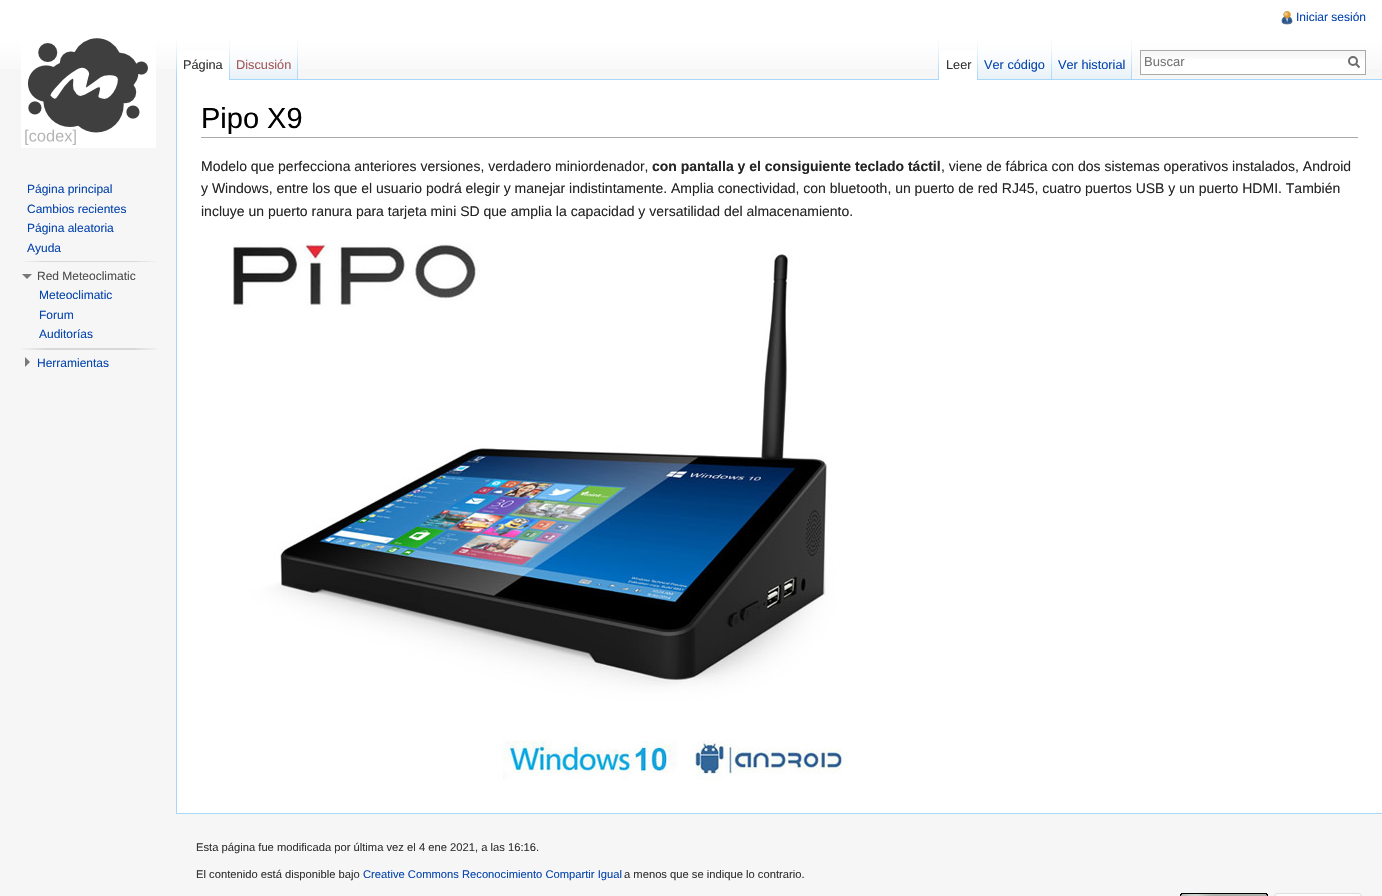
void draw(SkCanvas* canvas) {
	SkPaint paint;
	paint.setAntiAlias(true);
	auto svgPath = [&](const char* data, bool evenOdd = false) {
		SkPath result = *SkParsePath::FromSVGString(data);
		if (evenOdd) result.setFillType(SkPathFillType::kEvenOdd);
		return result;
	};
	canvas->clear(0xfff6f6f6);
	{
		const SkColor colors[] = {0xffffffff, 0xfff6f6f6};
		const float stops[] = {0.5, 1};
		const SkPoint ends[] = {{691, 0}, {691, 80}};
		paint.setShader(SkGradientShader::MakeLinear(ends, colors, stops, 2, SkTileMode::kClamp));
		paint.setAlpha(255);
	}
	canvas->drawRect(SkRect::MakeXYWH(0, 0, 1382, 69), paint);
	canvas->drawImageRect(SkImages::DeferredFromEncodedData(SkData::MakeFromFileName("img1.png")), SkRect::MakeXYWH(1281, 11, 12, 14), SkSamplingOptions());
	SkFont f1(fontMgr->matchFamilyStyle("Liberation Sans", SkFontStyle::Normal()), 12);
	f1.setSubpixel(true);
	paint.setShader(nullptr);
	paint.setColor(0xff0645ad);
	canvas->drawString("Iniciar sesión", 1296, 21, f1, paint);
	canvas->drawImageRect(SkImages::DeferredFromEncodedData(SkData::MakeFromFileName("img2.png")), SkRect::MakeXYWH(176, 40, 1, 39), SkSamplingOptions());
	paint.setColor(0xffffffff);
	canvas->drawRect(SkRect::MakeXYWH(177, 51, 52, 29), paint);
	canvas->drawImageRect(SkImages::DeferredFromEncodedData(SkData::MakeFromFileName("img3.png")), SkRect::MakeXYWH(229, 40, 1, 40), SkSamplingOptions());
	SkFont f2(fontMgr->matchFamilyStyle("Liberation Sans", SkFontStyle::Normal()), 12.75);
	f2.setSubpixel(true);
	paint.setColor(0xff333333);
	canvas->drawString("Página", 183, 69, f2, paint);
	canvas->drawImageRect(SkImages::DeferredFromEncodedData(SkData::MakeFromFileName("img4.png")), SkRect::MakeXYWH(230, 40, 68, 40), SkSamplingOptions());
	canvas->drawImageRect(SkImages::DeferredFromEncodedData(SkData::MakeFromFileName("img5.png")), SkRect::MakeXYWH(297, 40, 1, 39), SkSamplingOptions());
	paint.setColor(0xffa55858);
	canvas->drawString("Discusión", 236, 69, f2, paint);
	canvas->drawImageRect(SkImages::DeferredFromEncodedData(SkData::MakeFromFileName("img2.png")), SkRect::MakeXYWH(938, 40, 1, 39), SkSamplingOptions());
	paint.setColor(0xffa7d7f9);
	canvas->drawRect(SkRect::MakeXYWH(298, 79, 1084, 1), paint);
	paint.setColor(0xffffffff);
	canvas->drawRect(SkRect::MakeXYWH(939, 51, 38, 29), paint);
	canvas->drawImageRect(SkImages::DeferredFromEncodedData(SkData::MakeFromFileName("img3.png")), SkRect::MakeXYWH(977, 40, 1, 40), SkSamplingOptions());
	paint.setColor(0xff333333);
	canvas->drawString("Leer", 946, 69, f2, paint);
	canvas->drawImageRect(SkImages::DeferredFromEncodedData(SkData::MakeFromFileName("img6.png")), SkRect::MakeXYWH(978, 40, 74, 40), SkSamplingOptions());
	canvas->drawImageRect(SkImages::DeferredFromEncodedData(SkData::MakeFromFileName("img5.png")), SkRect::MakeXYWH(1051, 40, 1, 39), SkSamplingOptions());
	paint.setColor(0xff0645ad);
	canvas->drawString("Ver código", 984, 69, f2, paint);
	canvas->drawImageRect(SkImages::DeferredFromEncodedData(SkData::MakeFromFileName("img7.png")), SkRect::MakeXYWH(1052, 40, 80, 40), SkSamplingOptions());
	canvas->drawImageRect(SkImages::DeferredFromEncodedData(SkData::MakeFromFileName("img5.png")), SkRect::MakeXYWH(1131, 40, 1, 39), SkSamplingOptions());
	canvas->drawString("Ver historial", 1058, 69, f2, paint);
	paint.setColor(0xffffffff);
	canvas->drawRect(SkRect::MakeXYWH(1141, 59, 224, 15), paint);
	canvas->drawImageRect(SkImages::DeferredFromEncodedData(SkData::MakeFromFileName("img8.png")), SkRect::MakeXYWH(1141, 51, 224, 8), SkSamplingOptions());
	paint.setStroke(true);
	paint.setStrokeWidth(1);
	paint.setColor(0xffaaaaaa);
	canvas->drawRect(SkRect::MakeXYWH(1140.5, 50.5, 225, 24), paint);
	SkFont f3(fontMgr->matchFamilyStyle("Liberation Sans", SkFontStyle::Normal()), 13);
	f3.setSubpixel(true);
	paint.setStroke(false);
	paint.setColor(0xff757575);
	canvas->drawString("Buscar", 1144, 66, f3, paint);
	paint.setStroke(true);
	paint.setStrokeWidth(2);
	paint.setColor(0xff6c6c6c);
	canvas->drawPath(svgPath("M1359.5 67.5L1355.5 63.5"), paint);
	canvas->drawCircle(1353, 61, 4, paint);
	canvas->drawImageRect(SkImages::DeferredFromEncodedData(SkData::MakeFromFileName("img9.png")), SkRect::MakeXYWH(21, 38, 135, 110), SkSamplingOptions());
	paint.setStroke(false);
	paint.setColor(0xff0645ad);
	canvas->drawString("Página principal", 27, 193, f1, paint);
	canvas->drawString("Cambios recientes", 27, 213, f1, paint);
	canvas->drawString("Página aleatoria", 27, 232, f1, paint);
	canvas->drawString("Ayuda", 27, 252, f1, paint);
	canvas->drawImageRect(SkImages::DeferredFromEncodedData(SkData::MakeFromFileName("img10.png")), SkRect::MakeXYWH(22, 261, 135, 1), SkSamplingOptions());
	paint.setColor(0xff797979);
	canvas->drawPath(svgPath("M32 274L27 279L22 274Z"), paint);
	paint.setColor(0xff4d4d4d);
	canvas->drawString("Red Meteoclimatic", 37, 280, f1, paint);
	paint.setColor(0xff0645ad);
	canvas->drawString("Meteoclimatic", 39, 299, f1, paint);
	canvas->drawString("Forum", 39, 319, f1, paint);
	canvas->drawString("Auditorías", 39, 338, f1, paint);
	canvas->drawImageRect(SkImages::DeferredFromEncodedData(SkData::MakeFromFileName("img11.png")), SkRect::MakeXYWH(22, 348, 135, 2), SkSamplingOptions());
	paint.setColor(0xff797979);
	canvas->drawPath(svgPath("M25 357L30 362L25 367Z"), paint);
	paint.setColor(0xff0645ad);
	canvas->drawString("Herramientas", 37, 367, f1, paint);
	paint.setColor(0xffffffff);
	canvas->drawRect(SkRect::MakeXYWH(177, 80, 1205, 733), paint);
	paint.setColor(0xffa7d7f9);
	canvas->drawRect(SkRect::MakeXYWH(176, 813, 1206, 1), paint);
	canvas->drawRect(SkRect::MakeXYWH(176, 79, 1, 735), paint);
	paint.setColor(0xffaaaaaa);
	canvas->drawRect(SkRect::MakeXYWH(201, 137, 1157, 1), paint);
	SkFont f4(fontMgr->matchFamilyStyle("Liberation Sans", SkFontStyle::Normal()), 29);
	f4.setSubpixel(true);
	paint.setColor(0xff000000);
	canvas->drawString("Pipo X9", 201, 128, f4, paint);
	SkFont f5(fontMgr->matchFamilyStyle("Liberation Sans", SkFontStyle::Normal()), 14);
	f5.setSubpixel(true);
	paint.setColor(0xff252525);
	canvas->drawString("Modelo que perfecciona anteriores versiones, verdadero miniordenador,", 201, 171, f5, paint);
	SkFont f6(fontMgr->matchFamilyStyle("Liberation Sans", SkFontStyle::Bold()), 14);
	f6.setSubpixel(true);
	canvas->drawString("con pantalla y el consiguiente teclado táctil", 652, 171, f6, paint);
	canvas->drawString(", viene de fábrica con dos sistemas operativos instalados, Android", 941, 171, f5, paint);
	canvas->drawString("y Windows, entre los que el usuario podrá elegir y manejar indistintamente. Amplia conectividad, con bluetooth, un puerto de red RJ45, cuatro puertos USB y un puerto HDMI. También", 201, 193, f5, paint);
	canvas->drawString("incluye un puerto ranura para tarjeta mini SD que amplia la capacidad y versatilidad del almacenamiento.", 201, 216, f5, paint);
	canvas->drawImageRect(SkImages::DeferredFromEncodedData(SkData::MakeFromFileName("img12.png")), SkRect::MakeXYWH(233, 243, 615, 538), SkSamplingOptions());
	SkFont f7(fontMgr->matchFamilyStyle("Liberation Sans", SkFontStyle::Normal()), 11.2);
	f7.setSubpixel(true);
	paint.setColor(0xff333333);
	canvas->drawString("Esta página fue modificada por última vez el 4 ene 2021, a las 16:16.", 196, 851, f7, paint);
	canvas->drawString("El contenido está disponible bajo", 196, 878, f7, paint);
	paint.setColor(0xff0645ad);
	canvas->drawString("Creative Commons Reconocimiento Compartir Igual", 363, 878, f7, paint);
	paint.setColor(0xff333333);
	canvas->drawString("a menos que se indique lo contrario.", 624, 878, f7, paint);
	canvas->drawImageRect(SkImages::DeferredFromEncodedData(SkData::MakeFromFileName("img13.png")), SkRect::MakeXYWH(1180, 893, 88, 3), SkSamplingOptions());
	canvas->drawImageRect(SkImages::DeferredFromEncodedData(SkData::MakeFromFileName("img14.png")), SkRect::MakeXYWH(1274, 893, 88, 3), SkSamplingOptions());
}
